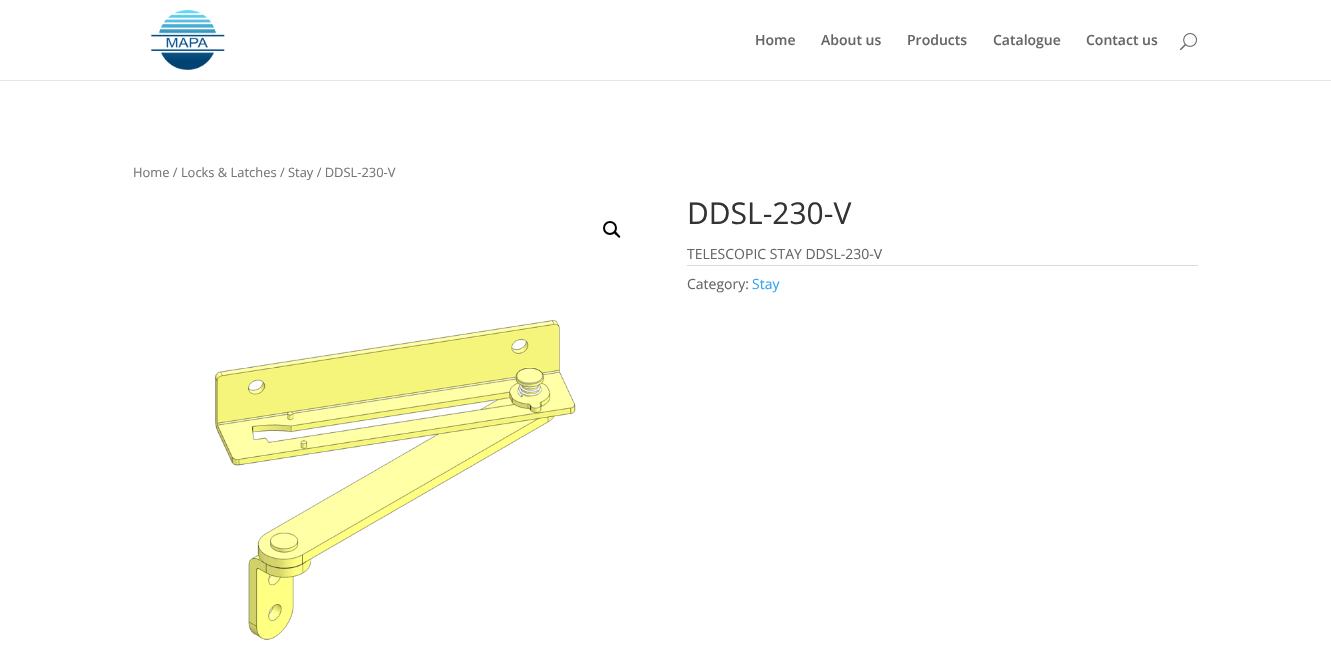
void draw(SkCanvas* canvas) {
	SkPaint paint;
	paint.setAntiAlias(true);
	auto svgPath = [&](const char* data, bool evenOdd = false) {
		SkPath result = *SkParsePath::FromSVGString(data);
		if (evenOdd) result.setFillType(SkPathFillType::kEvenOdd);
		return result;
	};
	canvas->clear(0xffffffff);
	paint.setColor(0xffe6e6e6);
	canvas->drawRect(SkRect::MakeXYWH(0, 80, 1331, 1), paint);
	canvas->drawImageRect(SkImages::DeferredFromEncodedData(SkData::MakeFromFileName("img1.png")), SkRect::MakeXYWH(150, 10, 75, 60), SkSamplingOptions());
	SkFont f1(fontMgr->matchFamilyStyle("Open Sans", SkFontStyle(600, SkFontStyle::kNormal_Width, SkFontStyle::kUpright_Slant)), 14);
	f1.setSubpixel(true);
	paint.setColor(0xff666666);
	canvas->drawString("Home", 755, 45, f1, paint);
	canvas->drawString("About us", 821, 45, f1, paint);
	canvas->drawString("Products", 907, 45, f1, paint);
	canvas->drawString("Catalogue", 993, 45, f1, paint);
	canvas->drawString("Contact us", 1086, 45, f1, paint);
	canvas->drawImageRect(SkImages::DeferredFromEncodedData(SkData::MakeFromFileName("img2.png")), SkRect::MakeXYWH(1180, 33, 17, 18), SkSamplingOptions());
	SkFont f2(fontMgr->matchFamilyStyle("Open Sans", SkFontStyle::Normal()), 12.9);
	f2.setSubpixel(true);
	paint.setColor(0xff767676);
	canvas->drawString("Home / Locks & Latches / Stay / DDSL-230-V", 133, 177, f2, paint);
	paint.setStroke(true);
	paint.setStrokeWidth(2);
	paint.setColor(0xff000000);
	canvas->drawCircle(610, 228, 6, paint);
	paint.setStroke(false);
	canvas->drawPath(svgPath("M614.5 232C615.5 230.5 617.5 233.5 618 234C618.5 234.5 621 236.5 620 237.5C619 238.5 617 236 616.5 235.5C616 235 613 233 614.5 232Z"), paint);
	canvas->drawImageRect(SkImages::DeferredFromEncodedData(SkData::MakeFromFileName("img3.png")), SkRect::MakeXYWH(215, 320, 361, 320), SkSamplingOptions());
	SkFont f3(fontMgr->matchFamilyStyle("Open Sans", SkFontStyle::Normal()), 30);
	f3.setSubpixel(true);
	paint.setColor(0xff333333);
	canvas->drawString("DDSL-230-V", 687, 224, f3, paint);
	SkFont f4(fontMgr->matchFamilyStyle("Open Sans", SkFontStyle::Normal()), 14);
	f4.setSubpixel(true);
	paint.setColor(0xff666666);
	canvas->drawString("TELESCOPIC STAY DDSL-230-V", 687, 259, f4, paint);
	paint.setColor(0xffdadada);
	canvas->drawRect(SkRect::MakeXYWH(687, 265, 511, 1), paint);
	paint.setColor(0xff666666);
	canvas->drawString("Category:", 687, 289, f4, paint);
	paint.setColor(0xff2ea3f2);
	canvas->drawString("Stay", 752, 289, f4, paint);
}
